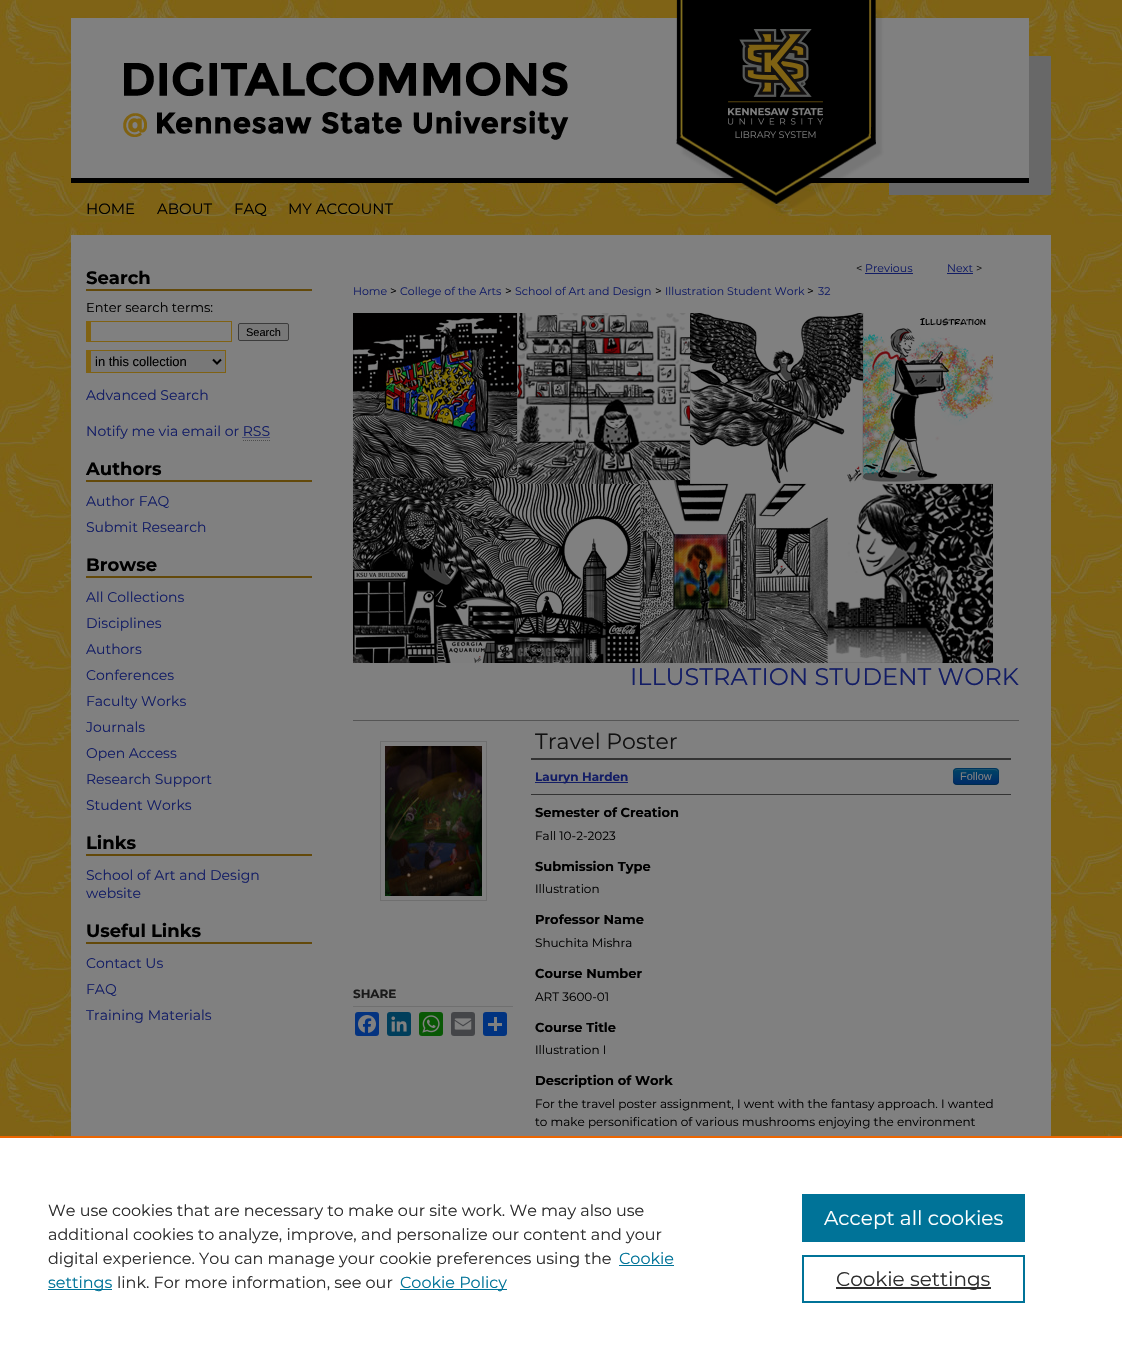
void draw(SkCanvas* canvas) {
	SkPaint paint;
	paint.setAntiAlias(true);
	auto svgPath = [&](const char* data, bool evenOdd = false) {
		SkPath result = *SkParsePath::FromSVGString(data);
		if (evenOdd) result.setFillType(SkPathFillType::kEvenOdd);
		return result;
	};
	canvas->clear(0xffffffff);
	canvas->drawImageRect(SkImages::DeferredFromEncodedData(SkData::MakeFromFileName("img1.png")), SkRect::MakeXYWH(0, 0, 1122, 1136), SkSamplingOptions());
	canvas->drawImageRect(SkImages::DeferredFromEncodedData(SkData::MakeFromFileName("img2.png")), SkRect::MakeXYWH(71, 0, 980, 183), SkSamplingOptions());
	canvas->drawImageRect(SkImages::DeferredFromEncodedData(SkData::MakeFromFileName("img3.png")), SkRect::MakeXYWH(875, 0, 2, 18), SkSamplingOptions());
	canvas->drawImageRect(SkImages::DeferredFromEncodedData(SkData::MakeFromFileName("img4.png")), SkRect::MakeXYWH(731, 183, 320, 31), SkSamplingOptions());
	SkFont f1(fontMgr->matchFamilyStyle("Montserrat", SkFontStyle::Normal()), 15);
	f1.setSubpixel(true);
	paint.setColor(0xff000000);
	canvas->drawString("HOME", 86, 214, f1, paint);
	canvas->drawString("ABOUT", 157, 214, f1, paint);
	canvas->drawString("FAQ", 234, 214, f1, paint);
	canvas->drawString("MY ACCOUNT", 288, 214, f1, paint);
	paint.setColor(0xff808080);
	canvas->drawRect(SkRect::MakeXYWH(71, 235, 980, 901), paint);
	paint.setColor(0xff63490a);
	canvas->drawRect(SkRect::MakeXYWH(86, 289, 226, 2), paint);
	SkFont f2(fontMgr->matchFamilyStyle("Montserrat", SkFontStyle::Bold()), 18);
	f2.setSubpixel(true);
	paint.setColor(0xff000000);
	canvas->drawString("Search", 86, 284, f2, paint);
	SkFont f3(fontMgr->matchFamilyStyle("Montserrat", SkFontStyle::Normal()), 13);
	f3.setSubpixel(true);
	canvas->drawString("Enter search terms:", 86, 312, f3, paint);
	paint.setColor(0xff806213);
	canvas->drawRect(SkRect::MakeXYWH(86, 321, 146, 1), paint);
	canvas->drawRect(SkRect::MakeXYWH(231, 321, 1, 21), paint);
	canvas->drawRect(SkRect::MakeXYWH(86, 341, 146, 1), paint);
	canvas->drawRect(SkRect::MakeXYWH(86, 321, 5, 21), paint);
	paint.setColor(0xff787878);
	canvas->drawRoundRect(SkRect::MakeXYWH(238.5, 323.5, 50, 17), 1.5, 1.5, paint);
	paint.setStroke(true);
	paint.setStrokeWidth(1);
	paint.setColor(0xff3b3b3b);
	canvas->drawRoundRect(SkRect::MakeXYWH(238.5, 323.5, 50, 17), 1.5, 1.5, paint);
	SkFont f4(fontMgr->matchFamilyStyle("Liberation Sans", SkFontStyle::Normal()), 11);
	f4.setSubpixel(true);
	paint.setStroke(false);
	paint.setColor(0xff000000);
	canvas->drawString("Search", 246, 336, f4, paint);
	paint.setColor(0xff787878);
	canvas->drawRect(SkRect::MakeXYWH(91, 351, 134, 21), paint);
	paint.setColor(0xff806213);
	canvas->drawRect(SkRect::MakeXYWH(86, 350, 140, 1), paint);
	canvas->drawRect(SkRect::MakeXYWH(225, 350, 1, 23), paint);
	canvas->drawRect(SkRect::MakeXYWH(86, 372, 140, 1), paint);
	canvas->drawRect(SkRect::MakeXYWH(86, 350, 5, 23), paint);
	paint.setStroke(true);
	paint.setStrokeWidth(2);
	paint.setColor(0xff000000);
	canvas->drawPath(svgPath("M213 359.5L217 363.5L221 359.5"), paint);
	SkFont f5(fontMgr->matchFamilyStyle("Liberation Sans", SkFontStyle::Normal()), 13);
	f5.setSubpixel(true);
	paint.setStroke(false);
	canvas->drawString("in this collection", 95, 366, f5, paint);
	SkFont f6(fontMgr->matchFamilyStyle("Montserrat", SkFontStyle::Normal()), 14);
	f6.setSubpixel(true);
	paint.setColor(0xff131d65);
	canvas->drawString("Advanced Search", 86, 400, f6, paint);
	canvas->drawString("Notify me via email or RSS", 86, 436, f6, paint);
	paint.setStroke(true);
	paint.setStrokeWidth(1);
	paint.setPathEffect(SkDashPathEffect::Make({{1, 1}}, 0));
	canvas->drawPath(svgPath("M242.5 437.5H270"), paint);
	paint.setPathEffect(nullptr);
	paint.setColor(0xff4d4d4d);
	paint.setPathEffect(SkDashPathEffect::Make({{1, 1}}, 0));
	canvas->drawPath(svgPath("M243 440.5H270"), paint);
	paint.setPathEffect(nullptr);
	paint.setStroke(false);
	paint.setColor(0xff63490a);
	canvas->drawRect(SkRect::MakeXYWH(86, 480, 226, 2), paint);
	paint.setColor(0xff000000);
	canvas->drawString("Authors", 86, 475, f2, paint);
	paint.setColor(0xff131d65);
	canvas->drawString("Author FAQ", 86, 506, f6, paint);
	canvas->drawString("Submit Research", 86, 532, f6, paint);
	paint.setColor(0xff63490a);
	canvas->drawRect(SkRect::MakeXYWH(86, 576, 226, 2), paint);
	paint.setColor(0xff000000);
	canvas->drawString("Browse", 86, 571, f2, paint);
	paint.setColor(0xff131d65);
	canvas->drawString("All Collections", 86, 602, f6, paint);
	canvas->drawString("Disciplines", 86, 628, f6, paint);
	canvas->drawString("Authors", 86, 654, f6, paint);
	canvas->drawString("Conferences", 86, 680, f6, paint);
	canvas->drawString("Faculty Works", 86, 706, f6, paint);
	canvas->drawString("Journals", 86, 732, f6, paint);
	canvas->drawString("Open Access", 86, 758, f6, paint);
	canvas->drawString("Research Support", 86, 784, f6, paint);
	canvas->drawString("Student Works", 86, 810, f6, paint);
	paint.setColor(0xff63490a);
	canvas->drawRect(SkRect::MakeXYWH(86, 854, 226, 2), paint);
	paint.setColor(0xff000000);
	canvas->drawString("Links", 86, 849, f2, paint);
	paint.setColor(0xff131d65);
	canvas->drawString("School of Art and Design", 86, 880, f6, paint);
	canvas->drawString("website", 86, 898, f6, paint);
	paint.setColor(0xff63490a);
	canvas->drawRect(SkRect::MakeXYWH(86, 942, 226, 2), paint);
	paint.setColor(0xff000000);
	canvas->drawString("Useful Links", 86, 937, f2, paint);
	paint.setColor(0xff131d65);
	canvas->drawString("Contact Us", 86, 968, f6, paint);
	canvas->drawString("FAQ", 86, 994, f6, paint);
	canvas->drawString("Training Materials", 86, 1020, f6, paint);
	SkFont f7(fontMgr->matchFamilyStyle("Montserrat", SkFontStyle::Normal()), 11);
	f7.setSubpixel(true);
	paint.setColor(0xff111111);
	canvas->drawString("<", 856, 272, f7, paint);
	paint.setColor(0xff131d65);
	canvas->drawString("Previous", 865, 272, f7, paint);
	canvas->drawRect(SkRect::MakeXYWH(865, 273, 48, 1), paint);
	canvas->drawString("Next", 947, 272, f7, paint);
	canvas->drawRect(SkRect::MakeXYWH(947, 273, 26, 1), paint);
	paint.setColor(0xff111111);
	canvas->drawString(">", 976, 272, f7, paint);
	paint.setColor(0xff131d65);
	canvas->drawString("Home", 353, 295, f7, paint);
	SkFont f8(fontMgr->matchFamilyStyle("Montserrat", SkFontStyle::Normal()), 12);
	f8.setSubpixel(true);
	paint.setColor(0xff000000);
	canvas->drawString(">", 390, 295, f8, paint);
	paint.setColor(0xff131d65);
	canvas->drawString("College of the Arts", 400, 295, f7, paint);
	paint.setColor(0xff000000);
	canvas->drawString(">", 505, 295, f8, paint);
	paint.setColor(0xff131d65);
	canvas->drawString("School of Art and Design", 515, 295, f7, paint);
	paint.setColor(0xff000000);
	canvas->drawString(">", 655, 295, f8, paint);
	paint.setColor(0xff131d65);
	canvas->drawString("Illustration Student Work", 665, 295, f7, paint);
	paint.setColor(0xff000000);
	canvas->drawString(">", 807, 295, f8, paint);
	paint.setColor(0xff131d65);
	canvas->drawString("32", 818, 295, f7, paint);
	canvas->drawImageRect(SkImages::DeferredFromEncodedData(SkData::MakeFromFileName("img5.png")), SkRect::MakeXYWH(353, 313, 640, 350), SkSamplingOptions());
	SkFont f9(fontMgr->matchFamilyStyle("Montserrat", SkFontStyle::Normal()), 24);
	f9.setSubpixel(true);
	canvas->drawString("ILLUSTRATION STUDENT WORK", 630, 685, f9, paint);
	paint.setStroke(true);
	paint.setColor(0xff6f6f6f);
	canvas->drawRect(SkRect::MakeXYWH(380.5, 741.5, 106, 159), paint);
	canvas->drawImageRect(SkImages::DeferredFromEncodedData(SkData::MakeFromFileName("img6.png")), SkRect::MakeXYWH(385, 746, 97, 150), SkSamplingOptions());
	paint.setStroke(false);
	canvas->drawRect(SkRect::MakeXYWH(353, 1006, 160, 1), paint);
	SkFont f10(fontMgr->matchFamilyStyle("Montserrat", SkFontStyle::Bold()), 12);
	f10.setSubpixel(true);
	paint.setColor(0xff1a1a1a);
	canvas->drawString("SHARE", 353, 998, f10, paint);
	paint.setColor(0xff043380);
	canvas->drawRoundRect(SkRect::MakeXYWH(355, 1012, 24, 24), 3, 3, paint);
	canvas->drawImageRect(SkImages::DeferredFromEncodedData(SkData::MakeFromFileName("img7.png")), SkRect::MakeXYWH(358, 1015, 18, 18), SkSamplingOptions());
	paint.setColor(0xff003e5b);
	canvas->drawRoundRect(SkRect::MakeXYWH(387, 1012, 24, 24), 3, 3, paint);
	canvas->drawImageRect(SkImages::DeferredFromEncodedData(SkData::MakeFromFileName("img8.png")), SkRect::MakeXYWH(391, 1016, 16, 16), SkSamplingOptions());
	paint.setColor(0xff095805);
	canvas->drawRoundRect(SkRect::MakeXYWH(419, 1012, 24, 24), 3, 3, paint);
	canvas->drawImageRect(SkImages::DeferredFromEncodedData(SkData::MakeFromFileName("img9.png")), SkRect::MakeXYWH(422, 1015, 18, 18), SkSamplingOptions());
	paint.setColor(0xff444548);
	canvas->drawRoundRect(SkRect::MakeXYWH(451, 1012, 24, 24), 3, 3, paint);
	canvas->drawImageRect(SkImages::DeferredFromEncodedData(SkData::MakeFromFileName("img10.png")), SkRect::MakeXYWH(454, 1018, 18, 12), SkSamplingOptions());
	paint.setColor(0xff013380);
	canvas->drawRoundRect(SkRect::MakeXYWH(483, 1012, 24, 24), 3, 3, paint);
	paint.setColor(0xff808080);
	canvas->drawRect(SkRect::MakeXYWH(494, 1017, 3, 14), paint);
	canvas->drawRect(SkRect::MakeXYWH(488, 1023, 14, 3), paint);
	paint.setColor(0xff555555);
	canvas->drawRect(SkRect::MakeXYWH(353, 720, 666, 1), paint);
	SkFont f11(fontMgr->matchFamilyStyle("Montserrat", SkFontStyle::Normal()), 22);
	f11.setSubpixel(true);
	paint.setColor(0xff111111);
	canvas->drawString("Travel Poster", 535, 749, f11, paint);
	paint.setColor(0xff333333);
	canvas->drawRect(SkRect::MakeXYWH(531, 758, 480, 2), paint);
	canvas->drawRect(SkRect::MakeXYWH(531, 794, 480, 1), paint);
	paint.setColor(0xff131d65);
	canvas->drawRect(SkRect::MakeXYWH(535, 782, 93, 1), paint);
	canvas->drawString("Lauryn Harden", 535, 781, f10, paint);
	paint.setColor(0xff003a66);
	canvas->drawRoundRect(SkRect::MakeXYWH(953, 768, 46, 17), 4, 4, paint);
	canvas->save();
	canvas->clipPath(svgPath("M957 768H995C997 768 999 770 999 772V781C999 783 997 785 995 785H957C955 785 953 783 953 781V772C953 770 955 768 957 768Z"), true);
	{
		const SkColor colors[] = {0xff004466, 0xff002b66};
		const float stops[] = {0, 1};
		const SkPoint ends[] = {{976, 769}, {976, 784}};
		paint.setShader(SkGradientShader::MakeLinear(ends, colors, stops, 2, SkTileMode::kClamp));
		paint.setAlpha(255);
	}
	canvas->drawRect(SkRect::MakeXYWH(953, 769, 46, 15), paint);
	canvas->restore();
	paint.setShader(nullptr);
	paint.setColor(0x33808080);
	canvas->drawPath(svgPath("M957 770H990C997 770 998 770 998 776V782V775C998 768 996 769 989 769H963C956 769 954 768 954 775V783C954 780 952 770 957 770Z"), paint);
	paint.setStroke(true);
	paint.setColor(0x40000000);
	canvas->drawPath(svgPath("M997.5 783.5C997 784 996 784.5 995 784.5H957C956 784.5 955 784 954.5 783.5"), paint);
	paint.setColor(0x1a000000);
	canvas->drawPath(svgPath("M954.5 783.5C953 781.5 953.5 778.5 953.5 776.5C953.5 767.5 954 768.5 963.5 768.5H988.5C998 768.5 998.5 767.5 998.5 776.5C998.5 778.5 999 781.5 997.5 783.5"), paint);
	paint.setStroke(false);
	paint.setColor(0xff808080);
	canvas->drawString("Follow", 960, 780, f4, paint);
	SkFont f12(fontMgr->matchFamilyStyle("Montserrat", SkFontStyle::Bold()), 13);
	f12.setSubpixel(true);
	paint.setColor(0xff000000);
	canvas->drawString("Semester of Creation", 535, 817, f12, paint);
	canvas->drawString("Fall 10-2-2023", 535, 840, f8, paint);
	canvas->drawString("Submission Type", 535, 871, f12, paint);
	canvas->drawString("Illustration", 535, 893, f8, paint);
	canvas->drawString("Professor Name", 535, 924, f12, paint);
	canvas->drawString("Shuchita Mishra", 535, 947, f8, paint);
	canvas->drawString("Course Number", 535, 978, f12, paint);
	canvas->drawString("ART 3600-01", 535, 1001, f8, paint);
	canvas->drawString("Course Title", 535, 1032, f12, paint);
	canvas->drawString("Illustration I", 535, 1054, f8, paint);
	canvas->drawString("Description of Work", 535, 1085, f12, paint);
	canvas->drawString("For the travel poster assignment, I went with the fantasy approach. I wanted", 535, 1108, f8, paint);
	canvas->drawString("to make personification of various mushrooms enjoying the environment", 535, 1126, f8, paint);
	paint.setColor(0xffeb6500);
	canvas->drawRect(SkRect::MakeXYWH(0, 1136, 1122, 2), paint);
	SkFont f13(fontMgr->matchFamilyStyle("Montserrat", SkFontStyle::Normal()), 16);
	f13.setSubpixel(true);
	paint.setColor(0xff2e2e2e);
	canvas->drawString("We use cookies that are necessary to make our site work. We may also use", 48, 1216, f13, paint);
	canvas->drawString("additional cookies to analyze, improve, and personalize our content and your", 48, 1240, f13, paint);
	canvas->drawString("digital experience. You can manage your cookie preferences using the", 48, 1264, f13, paint);
	paint.setColor(0xff007398);
	canvas->drawString("Cookie", 619, 1264, f13, paint);
	canvas->drawRect(SkRect::MakeXYWH(619, 1265, 55, 1), paint);
	canvas->drawRect(SkRect::MakeXYWH(48, 1289, 64, 1), paint);
	canvas->drawString("settings", 48, 1288, f13, paint);
	paint.setColor(0xff2e2e2e);
	canvas->drawString("link. For more information, see our", 117, 1288, f13, paint);
	paint.setColor(0xff007398);
	canvas->drawRect(SkRect::MakeXYWH(400, 1289, 107, 1), paint);
	canvas->drawString("Cookie Policy", 400, 1288, f13, paint);
	canvas->drawRect(SkRect::MakeXYWH(802, 1194, 223, 48), paint);
	SkFont f14(fontMgr->matchFamilyStyle("Montserrat", SkFontStyle::Normal()), 20);
	f14.setSubpixel(true);
	paint.setColor(0xffffffff);
	canvas->drawString("Accept all cookies", 824, 1225, f14, paint);
	paint.setStroke(true);
	paint.setStrokeWidth(2);
	paint.setColor(0xff007398);
	canvas->drawRect(SkRect::MakeXYWH(803, 1256, 221, 46), paint);
	paint.setStroke(false);
	paint.setColor(0xff2e2e2e);
	canvas->drawRect(SkRect::MakeXYWH(836, 1287, 155, 2), paint);
	canvas->drawString("Cookie settings", 836, 1286, f14, paint);
}
